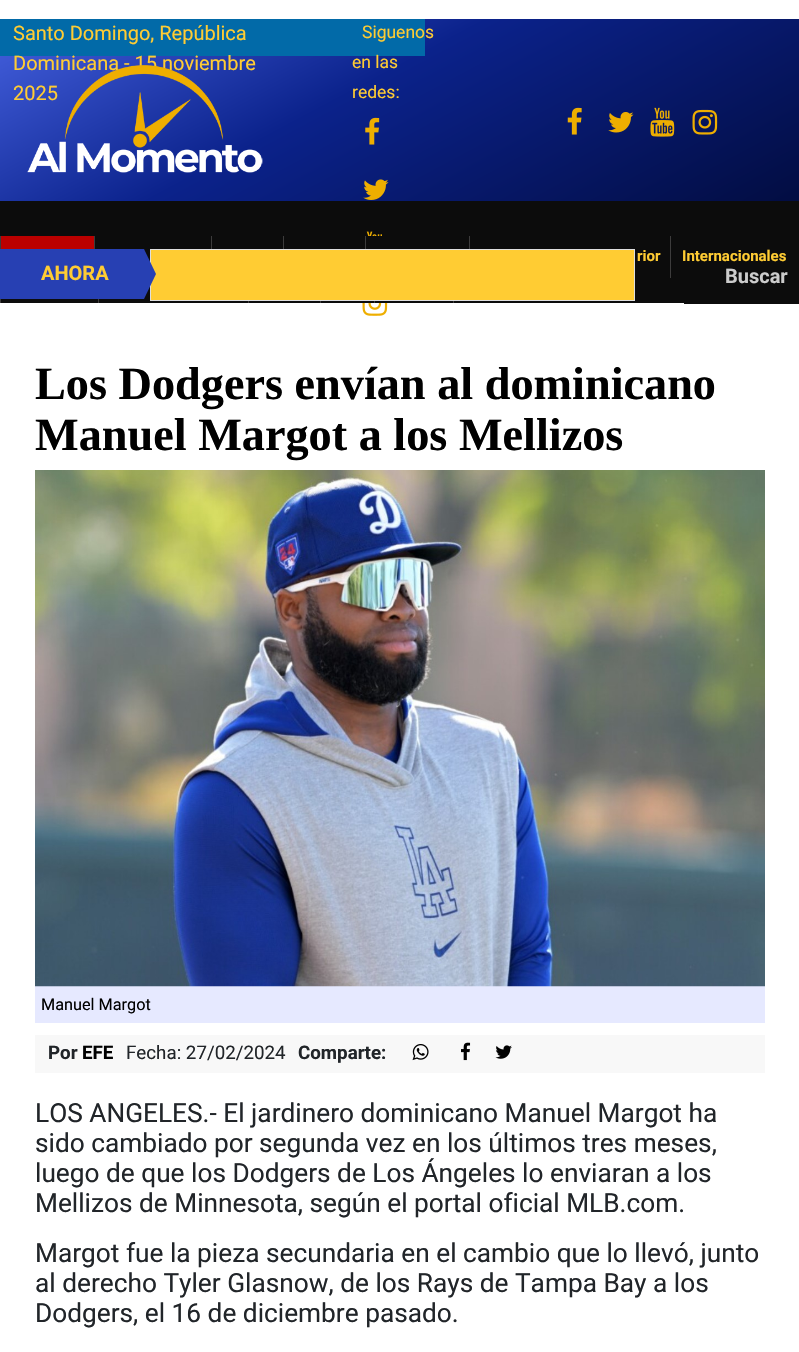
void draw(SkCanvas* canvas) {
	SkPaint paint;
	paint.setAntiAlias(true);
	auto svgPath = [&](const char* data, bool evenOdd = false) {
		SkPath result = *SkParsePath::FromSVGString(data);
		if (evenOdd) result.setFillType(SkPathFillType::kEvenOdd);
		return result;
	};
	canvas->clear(0xffffffff);
	{
		const SkColor colors[] = {0xff4662e1, 0xff0b228b, 0xff010a39};
		const float stops[] = {0, 0.4, 1};
		const SkPoint ends[] = {{265, -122}, {535, 384}};
		paint.setShader(SkGradientShader::MakeLinear(ends, colors, stops, 3, SkTileMode::kClamp));
		paint.setAlpha(255);
	}
	canvas->drawRect(SkRect::MakeXYWH(0, 19, 799, 182), paint);
	paint.setShader(nullptr);
	paint.setColor(0xff026aa8);
	canvas->drawRect(SkRect::MakeXYWH(0, 19, 425, 37), paint);
	SkFont f1(fontMgr->matchFamilyStyle("Roboto", SkFontStyle::Normal()), 20);
	f1.setSubpixel(true);
	paint.setColor(0xffffcc33);
	canvas->drawString("Santo Domingo, República", 13, 40, f1, paint);
	canvas->drawString("Dominicana - 15 noviembre", 13, 70, f1, paint);
	canvas->drawString("2025", 13, 100, f1, paint);
	SkFont f2(fontMgr->matchFamilyStyle("Roboto", SkFontStyle::Normal()), 17.5);
	f2.setSubpixel(true);
	canvas->drawString("Siguenos", 362, 38, f2, paint);
	canvas->drawString("en las", 352, 68, f2, paint);
	canvas->drawString("redes:", 352, 98, f2, paint);
	canvas->drawImageRect(SkImages::DeferredFromEncodedData(SkData::MakeFromFileName("img1.png")), SkRect::MakeXYWH(365, 117, 15, 28), SkSamplingOptions());
	canvas->drawImageRect(SkImages::DeferredFromEncodedData(SkData::MakeFromFileName("img2.png")), SkRect::MakeXYWH(363, 179, 26, 21), SkSamplingOptions());
	paint.setColor(0xff0c0c0c);
	canvas->drawRect(SkRect::MakeXYWH(0, 201, 799, 35), paint);
	canvas->drawImageRect(SkImages::DeferredFromEncodedData(SkData::MakeFromFileName("img3.png")), SkRect::MakeXYWH(366, 231, 16, 5), SkSamplingOptions());
	canvas->drawImageRect(SkImages::DeferredFromEncodedData(SkData::MakeFromFileName("img4.png")), SkRect::MakeXYWH(362, 303, 26, 13), SkSamplingOptions());
	canvas->drawImageRect(SkImages::DeferredFromEncodedData(SkData::MakeFromFileName("img5.png")), SkRect::MakeXYWH(27, 65, 236, 108), SkSamplingOptions());
	canvas->drawImageRect(SkImages::DeferredFromEncodedData(SkData::MakeFromFileName("img6.png")), SkRect::MakeXYWH(567, 107, 15, 28), SkSamplingOptions());
	canvas->drawImageRect(SkImages::DeferredFromEncodedData(SkData::MakeFromFileName("img7.png")), SkRect::MakeXYWH(608, 112, 26, 21), SkSamplingOptions());
	canvas->drawImageRect(SkImages::DeferredFromEncodedData(SkData::MakeFromFileName("img8.png")), SkRect::MakeXYWH(650, 107, 25, 30), SkSamplingOptions());
	canvas->drawImageRect(SkImages::DeferredFromEncodedData(SkData::MakeFromFileName("img9.png")), SkRect::MakeXYWH(692, 109, 26, 26), SkSamplingOptions());
	canvas->drawRect(SkRect::MakeXYWH(1, 236, 798, 67), paint);
	paint.setColor(0xff3d3c3c);
	canvas->drawRect(SkRect::MakeXYWH(0, 236, 1, 13), paint);
	paint.setColor(0xffbb0000);
	canvas->drawRect(SkRect::MakeXYWH(1, 236, 93, 13), paint);
	paint.setColor(0xff3d3c3c);
	canvas->drawRect(SkRect::MakeXYWH(94, 236, 1, 13), paint);
	canvas->drawRect(SkRect::MakeXYWH(211, 236, 1, 13), paint);
	canvas->drawRect(SkRect::MakeXYWH(283, 236, 1, 13), paint);
	canvas->drawRect(SkRect::MakeXYWH(365, 236, 1, 13), paint);
	canvas->drawRect(SkRect::MakeXYWH(469, 236, 1, 13), paint);
	SkFont f3(fontMgr->matchFamilyStyle("Roboto", SkFontStyle::Bold()), 15);
	f3.setSubpixel(true);
	paint.setColor(0xffffcc33);
	canvas->drawString("rior", 637, 261, f3, paint);
	paint.setColor(0xff3d3c3c);
	canvas->drawRect(SkRect::MakeXYWH(670, 236, 1, 42), paint);
	paint.setColor(0xffffcc33);
	canvas->drawString("Internacionales", 682, 261, f3, paint);
	paint.setColor(0xff3d3c3c);
	canvas->drawRect(SkRect::MakeXYWH(0, 299, 1, 4), paint);
	canvas->drawRect(SkRect::MakeXYWH(98, 299, 1, 4), paint);
	canvas->drawRect(SkRect::MakeXYWH(248, 301, 1, 2), paint);
	canvas->drawRect(SkRect::MakeXYWH(320, 301, 1, 2), paint);
	canvas->drawRect(SkRect::MakeXYWH(374, 301, 1, 2), paint);
	canvas->drawRect(SkRect::MakeXYWH(453, 301, 1, 2), paint);
	paint.setColor(0xff2740b3);
	canvas->drawRect(SkRect::MakeXYWH(0, 249, 144, 50), paint);
	SkFont f4(fontMgr->matchFamilyStyle("Roboto", SkFontStyle::Bold()), 20);
	f4.setSubpixel(true);
	paint.setColor(0xffffcc33);
	canvas->drawString("AHORA", 41, 280, f4, paint);
	canvas->drawRect(SkRect::MakeXYWH(150.5, 249.5, 484, 51), paint);
	paint.setStroke(true);
	paint.setStrokeWidth(1);
	paint.setColor(0xffdfdfdf);
	canvas->drawRect(SkRect::MakeXYWH(150.5, 249.5, 484, 51), paint);
	paint.setStroke(false);
	paint.setColor(0xff2740b3);
	canvas->drawPath(svgPath("M144 299V249L156 274Z"), paint);
	paint.setColor(0xff0c0c0c);
	canvas->drawRect(SkRect::MakeXYWH(684, 303, 115, 1), paint);
	paint.setColor(0xffcccccc);
	canvas->drawString("Buscar", 725, 283, f4, paint);
	SkFont f5(fontMgr->matchFamilyStyle("Liberation Serif", SkFontStyle::Bold()), 46.25);
	f5.setSubpixel(true);
	paint.setColor(0xff000000);
	canvas->drawString("Los Dodgers envían al dominicano", 35, 399, f5, paint);
	canvas->drawString("Manuel Margot a los Mellizos", 35, 450, f5, paint);
	paint.setColor(0xffe6e9ff);
	canvas->drawRect(SkRect::MakeXYWH(35, 986, 730, 37), paint);
	canvas->drawImageRect(SkImages::DeferredFromEncodedData(SkData::MakeFromFileName("img10.png")), SkRect::MakeXYWH(35, 470, 730, 517), SkSamplingOptions());
	SkFont f6(fontMgr->matchFamilyStyle("Roboto", SkFontStyle::Normal()), 16.25);
	f6.setSubpixel(true);
	paint.setColor(0xff000000);
	canvas->drawString("Manuel Margot", 41, 1010, f6, paint);
	paint.setColor(0xfff8f8f8);
	canvas->drawRect(SkRect::MakeXYWH(35, 1035, 730, 38), paint);
	SkFont f7(fontMgr->matchFamilyStyle("Roboto", SkFontStyle::Bold()), 18.75);
	f7.setSubpixel(true);
	paint.setColor(0xff212529);
	canvas->drawString("Por", 48, 1059, f7, paint);
	paint.setColor(0xff000000);
	canvas->drawString("EFE", 82, 1059, f7, paint);
	SkFont f8(fontMgr->matchFamilyStyle("Roboto", SkFontStyle::Normal()), 18.75);
	f8.setSubpixel(true);
	paint.setColor(0xff212529);
	canvas->drawString("Fecha: 27/02/2024", 126, 1059, f8, paint);
	canvas->drawString("Comparte:", 298, 1059, f7, paint);
	canvas->drawImageRect(SkImages::DeferredFromEncodedData(SkData::MakeFromFileName("img11.png")), SkRect::MakeXYWH(412, 1044, 17, 17), SkSamplingOptions());
	canvas->drawImageRect(SkImages::DeferredFromEncodedData(SkData::MakeFromFileName("img12.png")), SkRect::MakeXYWH(461, 1042, 10, 19), SkSamplingOptions());
	canvas->drawImageRect(SkImages::DeferredFromEncodedData(SkData::MakeFromFileName("img13.png")), SkRect::MakeXYWH(495, 1045, 17, 14), SkSamplingOptions());
	SkFont f9(fontMgr->matchFamilyStyle("Roboto", SkFontStyle::Normal()), 26.25);
	f9.setSubpixel(true);
	canvas->drawString("LOS ANGELES.- El jardinero dominicano Manuel Margot ha", 35, 1122, f9, paint);
	canvas->drawString("sido cambiado por segunda vez en los últimos tres meses,", 35, 1152, f9, paint);
	canvas->drawString("luego de que los Dodgers de Los Ángeles lo enviaran a los", 35, 1182, f9, paint);
	canvas->drawString("Mellizos de Minnesota, según el portal oficial MLB.com.", 35, 1212, f9, paint);
	canvas->drawString("Margot fue la pieza secundaria en el cambio que lo llevó, junto", 35, 1262, f9, paint);
	canvas->drawString("al derecho Tyler Glasnow, de los Rays de Tampa Bay a los", 35, 1292, f9, paint);
	canvas->drawString("Dodgers, el 16 de diciembre pasado.", 35, 1322, f9, paint);
}
